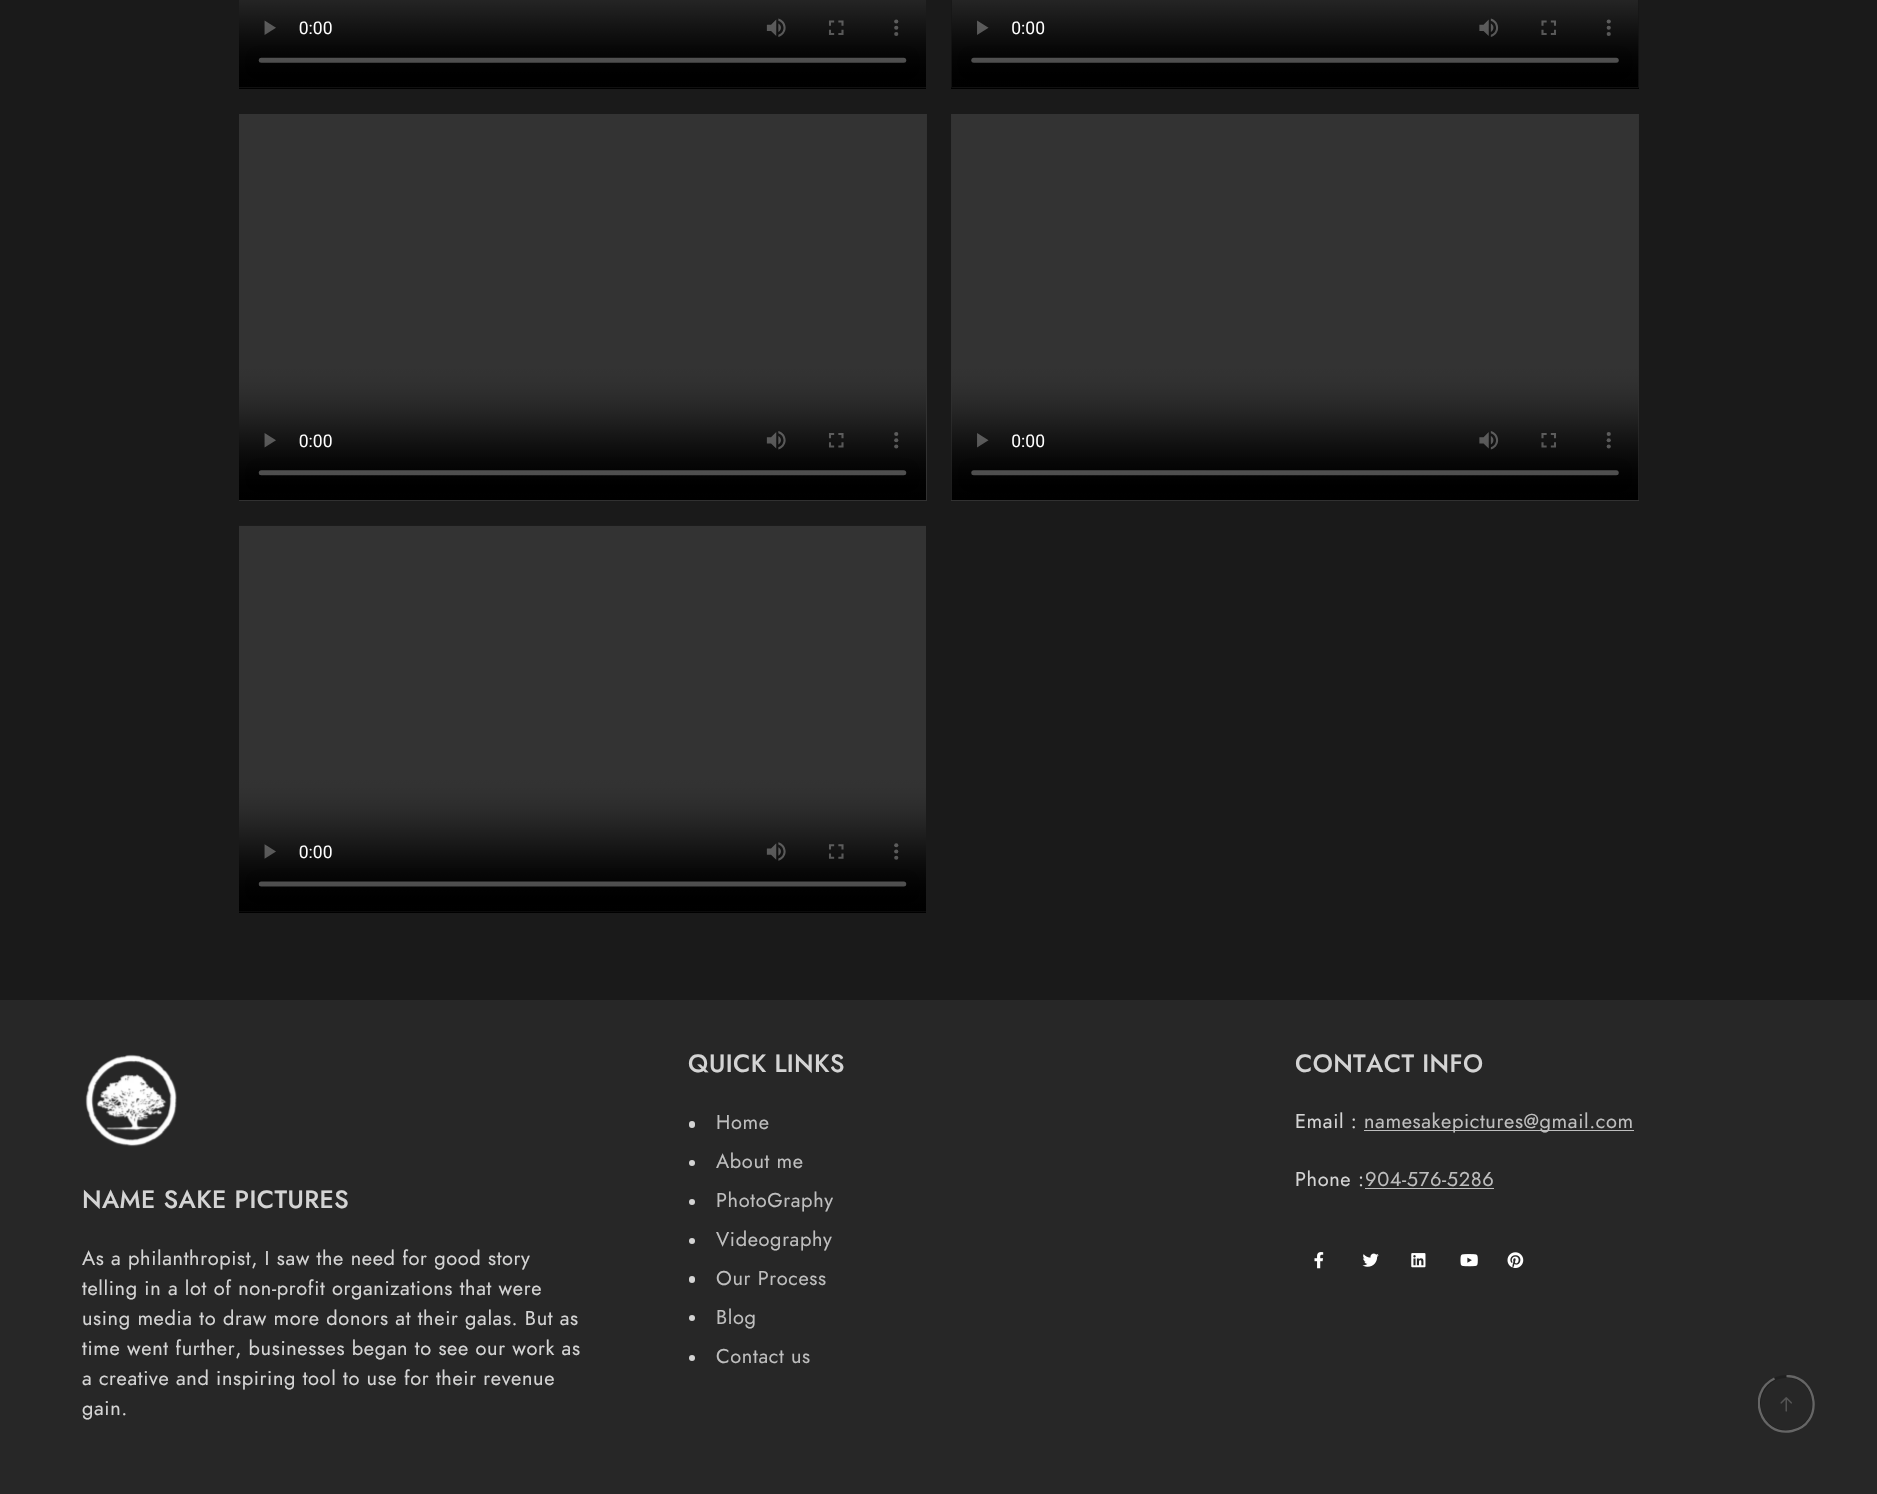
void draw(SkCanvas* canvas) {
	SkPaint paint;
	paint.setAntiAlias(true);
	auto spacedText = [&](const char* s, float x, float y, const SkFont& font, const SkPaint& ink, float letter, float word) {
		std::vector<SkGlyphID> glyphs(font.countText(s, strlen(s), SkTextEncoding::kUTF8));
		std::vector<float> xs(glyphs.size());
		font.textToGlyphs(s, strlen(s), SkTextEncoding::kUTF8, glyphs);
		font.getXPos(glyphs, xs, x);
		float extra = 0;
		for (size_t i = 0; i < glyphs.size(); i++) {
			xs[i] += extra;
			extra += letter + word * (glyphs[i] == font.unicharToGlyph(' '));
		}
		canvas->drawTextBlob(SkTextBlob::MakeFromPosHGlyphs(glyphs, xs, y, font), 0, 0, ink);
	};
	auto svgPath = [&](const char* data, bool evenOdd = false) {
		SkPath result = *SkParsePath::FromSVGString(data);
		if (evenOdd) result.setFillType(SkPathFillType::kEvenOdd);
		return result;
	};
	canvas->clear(0xff1a1a1a);
	paint.setColor(0xff000000);
	canvas->drawRect(SkRect::MakeXYWH(239, 87, 687, 2), paint);
	canvas->drawImageRect(SkImages::DeferredFromEncodedData(SkData::MakeFromFileName("img1.png")), SkRect::MakeXYWH(239, 0, 687, 88), SkSamplingOptions());
	canvas->drawRect(SkRect::MakeXYWH(951, 0, 688, 89), paint);
	canvas->drawImageRect(SkImages::DeferredFromEncodedData(SkData::MakeFromFileName("img2.png")), SkRect::MakeXYWH(951, 0, 688, 88), SkSamplingOptions());
	canvas->drawImageRect(SkImages::DeferredFromEncodedData(SkData::MakeFromFileName("img3.png")), SkRect::MakeXYWH(239, 114, 688, 387), SkSamplingOptions());
	canvas->drawImageRect(SkImages::DeferredFromEncodedData(SkData::MakeFromFileName("img4.png")), SkRect::MakeXYWH(951, 114, 688, 387), SkSamplingOptions());
	canvas->drawRect(SkRect::MakeXYWH(239, 525, 687, 388), paint);
	canvas->drawImageRect(SkImages::DeferredFromEncodedData(SkData::MakeFromFileName("img5.png")), SkRect::MakeXYWH(239, 525, 687, 387), SkSamplingOptions());
	paint.setColor(0xff272727);
	canvas->drawRect(SkRect::MakeXYWH(0, 1000, 1877, 494), paint);
	SkFont f1(fontMgr->matchFamilyStyle("Jost", SkFontStyle(500, SkFontStyle::kNormal_Width, SkFontStyle::kUpright_Slant)), 25);
	f1.setSubpixel(true);
	paint.setColor(0xffd4d4d4);
	spacedText("QUICK LINKS", 688, 1072, f1, paint, 0.4, 0);
	canvas->drawRoundRect(SkRect::MakeXYWH(689, 1121, 6, 7), 3, 3, paint);
	SkFont f2(fontMgr->matchFamilyStyle("Jost", SkFontStyle::Normal()), 20);
	f2.setSubpixel(true);
	paint.setColor(0xffbebebe);
	spacedText("Home", 716, 1129, f2, paint, 0.62, 0);
	paint.setColor(0xffd4d4d4);
	canvas->drawCircle(692, 1163, 3, paint);
	paint.setColor(0xffbebebe);
	spacedText("About me", 716, 1168, f2, paint, 0.62, 0);
	paint.setColor(0xffd4d4d4);
	canvas->drawCircle(692, 1202, 3, paint);
	paint.setColor(0xffbebebe);
	spacedText("PhotoGraphy", 716, 1207, f2, paint, 0.62, 0);
	paint.setColor(0xffd4d4d4);
	canvas->drawCircle(692, 1241, 3, paint);
	paint.setColor(0xffbebebe);
	spacedText("Videography", 716, 1246, f2, paint, 0.62, 0);
	paint.setColor(0xffd4d4d4);
	canvas->drawRoundRect(SkRect::MakeXYWH(689, 1276, 6, 7), 3, 3, paint);
	paint.setColor(0xffbebebe);
	spacedText("Our Process", 716, 1285, f2, paint, 0.62, 0);
	paint.setColor(0xffd4d4d4);
	canvas->drawCircle(692, 1318, 3, paint);
	paint.setColor(0xffbebebe);
	spacedText("Blog", 716, 1324, f2, paint, 0.62, 0);
	paint.setColor(0xffd4d4d4);
	canvas->drawCircle(692, 1358, 3, paint);
	paint.setColor(0xffbebebe);
	spacedText("Contact us", 716, 1363, f2, paint, 0.62, 0);
	paint.setColor(0xffd4d4d4);
	spacedText("CONTACT INFO", 1295, 1072, f1, paint, 0.4, 0);
	spacedText("Email :", 1295, 1128, f2, paint, 0.62, 0);
	paint.setColor(0xffbebebe);
	canvas->drawRect(SkRect::MakeXYWH(1364, 1130, 270, 1), paint);
	spacedText("namesakepictures@gmail.com", 1364, 1128, f2, paint, 0.62, 0);
	paint.setColor(0xffd4d4d4);
	spacedText("Phone :", 1295, 1186, f2, paint, 0.62, 0);
	paint.setColor(0xffbebebe);
	spacedText("904-576-5286", 1365, 1186, f2, paint, 0.62, 0);
	canvas->drawRect(SkRect::MakeXYWH(1365, 1188, 129, 1), paint);
	canvas->drawImageRect(SkImages::DeferredFromEncodedData(SkData::MakeFromFileName("img6.png")), SkRect::MakeXYWH(1314, 1252, 10, 17), SkSamplingOptions());
	canvas->drawImageRect(SkImages::DeferredFromEncodedData(SkData::MakeFromFileName("img7.png")), SkRect::MakeXYWH(1362, 1253, 17, 14), SkSamplingOptions());
	canvas->drawImageRect(SkImages::DeferredFromEncodedData(SkData::MakeFromFileName("img8.png")), SkRect::MakeXYWH(1411, 1253, 15, 15), SkSamplingOptions());
	canvas->drawImageRect(SkImages::DeferredFromEncodedData(SkData::MakeFromFileName("img9.png")), SkRect::MakeXYWH(1460, 1254, 18, 13), SkSamplingOptions());
	canvas->drawImageRect(SkImages::DeferredFromEncodedData(SkData::MakeFromFileName("img10.png")), SkRect::MakeXYWH(1507, 1252, 17, 16), SkSamplingOptions());
	canvas->drawImageRect(SkImages::DeferredFromEncodedData(SkData::MakeFromFileName("img11.png")), SkRect::MakeXYWH(85, 1054, 92, 93), SkSamplingOptions());
	paint.setColor(0xffd4d4d4);
	spacedText("NAME SAKE PICTURES", 82, 1208, f1, paint, 0.4, 0);
	spacedText("As a philanthropist, I saw the need for good story", 82, 1265, f2, paint, 0.62, 0);
	spacedText("telling in a lot of non-profit organizations that were", 82, 1295, f2, paint, 0.62, 0);
	spacedText("using media to draw more donors at their galas. But as", 82, 1325, f2, paint, 0.62, 0);
	spacedText("time went further, businesses began to see our work as", 82, 1355, f2, paint, 0.62, 0);
	spacedText("a creative and inspiring tool to use for their revenue", 82, 1385, f2, paint, 0.62, 0);
	spacedText("gain.", 82, 1415, f2, paint, 0.62, 0);
	paint.setStroke(true);
	paint.setStrokeWidth(3);
	paint.setColor(0xff1f1f1f);
	canvas->drawRoundRect(SkRect::MakeXYWH(1759.5, 1376.5, 54, 55), 27, 27, paint);
	canvas->save();
	canvas->clipRect(SkRect::MakeXYWH(1758, 1375, 57, 58));
	paint.setStrokeWidth(2.3);
	paint.setColor(0xff666666);
	canvas->drawPath(svgPath("M1786.5 1376C1819 1376 1824 1424.5 1792 1431C1760 1437.5 1745.5 1392.5 1774.5 1378.5"), paint);
	canvas->restore();
	canvas->drawImageRect(SkImages::DeferredFromEncodedData(SkData::MakeFromFileName("img12.png")), SkRect::MakeXYWH(1780, 1397, 12, 15), SkSamplingOptions());
}
